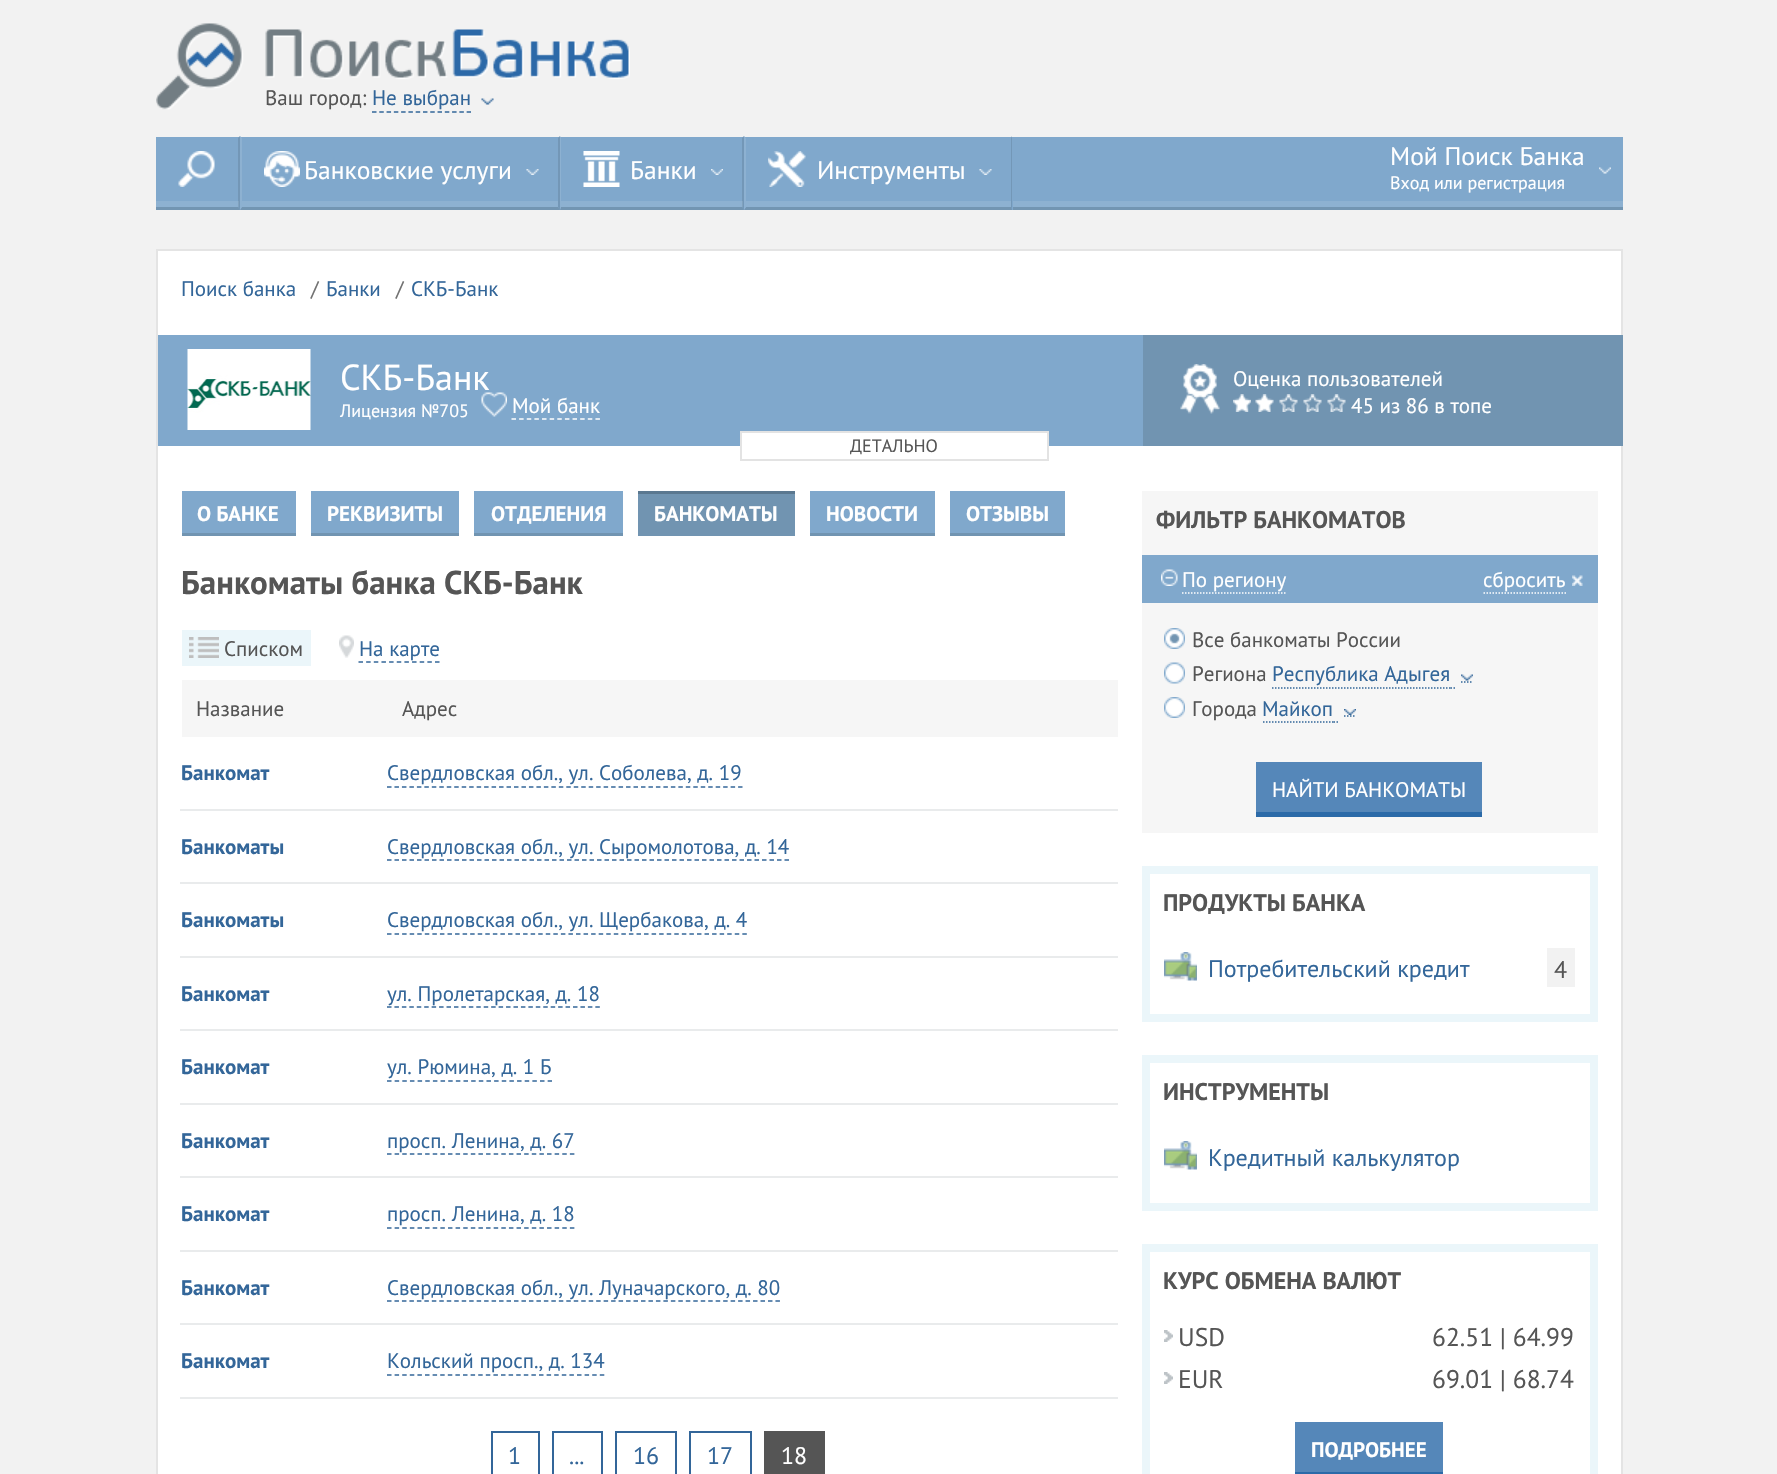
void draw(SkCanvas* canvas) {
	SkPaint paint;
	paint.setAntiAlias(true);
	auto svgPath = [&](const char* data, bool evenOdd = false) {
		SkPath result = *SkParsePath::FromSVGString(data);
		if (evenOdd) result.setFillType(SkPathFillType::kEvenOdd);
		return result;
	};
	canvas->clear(0xfff2f2f2);
	canvas->drawImageRect(SkImages::DeferredFromEncodedData(SkData::MakeFromFileName("img1.png")), SkRect::MakeXYWH(156, 23, 474, 87), SkSamplingOptions());
	SkFont f1(fontMgr->matchFamilyStyle("PT Sans", SkFontStyle::Normal()), 21);
	f1.setSubpixel(true);
	paint.setColor(0xff555555);
	canvas->drawString("Ваш город:", 265, 105, f1, paint);
	paint.setColor(0xff336699);
	canvas->drawString("Не выбран", 372, 105, f1, paint);
	paint.setStroke(true);
	paint.setStrokeWidth(1.5);
	paint.setPathEffect(SkDashPathEffect::Make({{4.5f, 2.78f}}, 0));
	canvas->drawPath(svgPath("M372 112H471"), paint);
	paint.setPathEffect(nullptr);
	canvas->drawImageRect(SkImages::DeferredFromEncodedData(SkData::MakeFromFileName("img2.png")), SkRect::MakeXYWH(481, 98, 13, 7), SkSamplingOptions());
	paint.setStroke(false);
	paint.setColor(0xff80a8cc);
	canvas->drawRect(SkRect::MakeXYWH(1013, 137, 610, 64), paint);
	paint.setColor(0xff7295b2);
	canvas->drawRect(SkRect::MakeXYWH(1013, 207, 610, 3), paint);
	paint.setColor(0xff80a8cc);
	canvas->drawRect(SkRect::MakeXYWH(156, 137, 857, 73), paint);
	paint.setColor(0xff7397b7);
	canvas->drawPath(svgPath("M240 136V210L238 207V138Z"), paint);
	paint.setColor(0xff7295b2);
	canvas->drawPath(svgPath("M240 210H156V207H238Z"), paint);
	canvas->drawImageRect(SkImages::DeferredFromEncodedData(SkData::MakeFromFileName("img3.png")), SkRect::MakeXYWH(178, 151, 37, 36), SkSamplingOptions());
	paint.setColor(0x1affffff);
	canvas->drawRect(SkRect::MakeXYWH(156, 201, 83, 6), paint);
	SkFont f2(fontMgr->matchFamilyStyle("PT Sans", SkFontStyle::Normal()), 25.5);
	f2.setSubpixel(true);
	paint.setColor(0xffffffff);
	canvas->drawString("Мой Поиск Банка", 1390, 165, f2, paint);
	canvas->drawImageRect(SkImages::DeferredFromEncodedData(SkData::MakeFromFileName("img4.png")), SkRect::MakeXYWH(1599, 167, 12, 7), SkSamplingOptions());
	SkFont f3(fontMgr->matchFamilyStyle("PT Sans", SkFontStyle::Normal()), 18);
	f3.setSubpixel(true);
	canvas->drawString("Вход или регистрация", 1390, 189, f3, paint);
	paint.setColor(0xff7397b7);
	canvas->drawPath(svgPath("M560 136V210L558 207V138Z"), paint);
	paint.setColor(0xff7295b2);
	canvas->drawPath(svgPath("M560 210H240L242 207H558Z"), paint);
	paint.setColor(0xff8db1d1);
	canvas->drawPath(svgPath("M240 210V136L242 138V207Z"), paint);
	canvas->drawImageRect(SkImages::DeferredFromEncodedData(SkData::MakeFromFileName("img5.png")), SkRect::MakeXYWH(264, 151, 36, 36), SkSamplingOptions());
	paint.setColor(0xffffffff);
	canvas->drawString("Банковские услуги", 304, 179, f2, paint);
	canvas->drawImageRect(SkImages::DeferredFromEncodedData(SkData::MakeFromFileName("img6.png")), SkRect::MakeXYWH(526, 169, 13, 6), SkSamplingOptions());
	paint.setColor(0xff8db1d1);
	canvas->drawRect(SkRect::MakeXYWH(242, 201, 316, 6), paint);
	paint.setColor(0xff7397b7);
	canvas->drawPath(svgPath("M744 136V210L742 207V138Z"), paint);
	paint.setColor(0xff7295b2);
	canvas->drawPath(svgPath("M744 210H560L561 207H742Z"), paint);
	paint.setColor(0xff8db1d1);
	canvas->drawPath(svgPath("M560 210V136L561 138V207Z"), paint);
	canvas->drawImageRect(SkImages::DeferredFromEncodedData(SkData::MakeFromFileName("img7.png")), SkRect::MakeXYWH(583, 151, 37, 36), SkSamplingOptions());
	paint.setColor(0xffffffff);
	canvas->drawString("Банки", 630, 179, f2, paint);
	canvas->drawImageRect(SkImages::DeferredFromEncodedData(SkData::MakeFromFileName("img8.png")), SkRect::MakeXYWH(711, 169, 12, 6), SkSamplingOptions());
	paint.setColor(0x1affffff);
	canvas->drawRect(SkRect::MakeXYWH(561, 201, 182, 6), paint);
	paint.setColor(0xff7397b7);
	canvas->drawPath(svgPath("M1012 136V210L1011 207V138Z"), paint);
	paint.setColor(0xff7295b2);
	canvas->drawPath(svgPath("M1012 210H744L746 207H1011Z"), paint);
	paint.setColor(0xff8db1d1);
	canvas->drawPath(svgPath("M744 210V136L746 138V207Z"), paint);
	canvas->drawImageRect(SkImages::DeferredFromEncodedData(SkData::MakeFromFileName("img9.png")), SkRect::MakeXYWH(768, 151, 38, 36), SkSamplingOptions());
	paint.setColor(0xffffffff);
	canvas->drawString("Инструменты", 817, 179, f2, paint);
	canvas->drawImageRect(SkImages::DeferredFromEncodedData(SkData::MakeFromFileName("img10.png")), SkRect::MakeXYWH(979, 169, 13, 6), SkSamplingOptions());
	paint.setColor(0xff8db1d1);
	canvas->drawRect(SkRect::MakeXYWH(746, 201, 265, 6), paint);
	canvas->drawRect(SkRect::MakeXYWH(1013, 201, 610, 6), paint);
	paint.setColor(0xffffffff);
	canvas->drawRect(SkRect::MakeXYWH(157, 250, 1465, 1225), paint);
	paint.setStroke(true);
	paint.setStrokeWidth(2);
	paint.setColor(0xffe4e4e4);
	canvas->drawRect(SkRect::MakeXYWH(157, 250, 1465, 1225), paint);
	paint.setStroke(false);
	paint.setColor(0xff336699);
	canvas->drawString("Поиск банка", 181, 296, f1, paint);
	paint.setColor(0xff727272);
	canvas->drawString("/", 311, 296, f1, paint);
	paint.setColor(0xff336699);
	canvas->drawString("Банки", 326, 296, f1, paint);
	paint.setColor(0xff727272);
	canvas->drawString("/", 396, 296, f1, paint);
	paint.setColor(0xff336699);
	canvas->drawString("СКБ-Банк", 411, 296, f1, paint);
	paint.setColor(0xff80a8cc);
	canvas->drawRect(SkRect::MakeXYWH(158, 335, 985, 111), paint);
	canvas->drawImageRect(SkImages::DeferredFromEncodedData(SkData::MakeFromFileName("img11.png")), SkRect::MakeXYWH(187, 349, 124, 81), SkSamplingOptions());
	SkFont f4(fontMgr->matchFamilyStyle("PT Sans", SkFontStyle::Normal()), 36);
	f4.setSubpixel(true);
	paint.setColor(0xffffffff);
	canvas->drawString("СКБ-Банк", 340, 390, f4, paint);
	canvas->drawString("Лицензия №705", 340, 417, f3, paint);
	canvas->drawImageRect(SkImages::DeferredFromEncodedData(SkData::MakeFromFileName("img12.png")), SkRect::MakeXYWH(481, 392, 26, 25), SkSamplingOptions());
	canvas->drawString("Мой банк", 512, 413, f1, paint);
	paint.setStroke(true);
	paint.setStrokeWidth(1.5);
	paint.setPathEffect(SkDashPathEffect::Make({{4.5f, 3.13f}}, 0));
	canvas->drawPath(svgPath("M511.5 419H600"), paint);
	paint.setPathEffect(nullptr);
	paint.setStroke(false);
	paint.setColor(0xff7194b1);
	canvas->drawRect(SkRect::MakeXYWH(1143, 335, 480, 111), paint);
	canvas->drawImageRect(SkImages::DeferredFromEncodedData(SkData::MakeFromFileName("img13.png")), SkRect::MakeXYWH(1180, 364, 40, 50), SkSamplingOptions());
	paint.setColor(0xffffffff);
	canvas->drawString("Оценка пользователей", 1233, 386, f1, paint);
	canvas->drawImageRect(SkImages::DeferredFromEncodedData(SkData::MakeFromFileName("img14.png")), SkRect::MakeXYWH(1233, 394, 18, 18), SkSamplingOptions());
	canvas->drawImageRect(SkImages::DeferredFromEncodedData(SkData::MakeFromFileName("img15.png")), SkRect::MakeXYWH(1255, 394, 19, 18), SkSamplingOptions());
	canvas->drawImageRect(SkImages::DeferredFromEncodedData(SkData::MakeFromFileName("img16.png")), SkRect::MakeXYWH(1279, 394, 19, 18), SkSamplingOptions());
	canvas->drawImageRect(SkImages::DeferredFromEncodedData(SkData::MakeFromFileName("img17.png")), SkRect::MakeXYWH(1303, 394, 19, 18), SkSamplingOptions());
	canvas->drawImageRect(SkImages::DeferredFromEncodedData(SkData::MakeFromFileName("img17.png")), SkRect::MakeXYWH(1327, 394, 19, 18), SkSamplingOptions());
	canvas->drawString("45 из 86 в топе", 1351, 413, f1, paint);
	canvas->drawRect(SkRect::MakeXYWH(742, 433, 305, 13), paint);
	paint.setStroke(true);
	paint.setStrokeWidth(2);
	paint.setColor(0xffe3e3e3);
	canvas->drawRect(SkRect::MakeXYWH(741, 432, 307, 28), paint);
	paint.setStroke(false);
	paint.setColor(0xff555555);
	canvas->drawString("ДЕТАЛЬНО", 850, 452, f3, paint);
	paint.setColor(0xff80a8cc);
	canvas->drawRect(SkRect::MakeXYWH(182, 491, 114, 42), paint);
	paint.setColor(0xff7194b1);
	canvas->drawRect(SkRect::MakeXYWH(182, 533, 114, 3), paint);
	SkFont f5(fontMgr->matchFamilyStyle("PT Sans", SkFontStyle::Bold()), 21);
	f5.setSubpixel(true);
	paint.setColor(0xffffffff);
	canvas->drawString("О БАНКЕ", 197, 521, f5, paint);
	paint.setColor(0xff80a8cc);
	canvas->drawRect(SkRect::MakeXYWH(311, 491, 148, 42), paint);
	paint.setColor(0xff7194b1);
	canvas->drawRect(SkRect::MakeXYWH(311, 533, 148, 3), paint);
	paint.setColor(0xffffffff);
	canvas->drawString("РЕКВИЗИТЫ", 327, 521, f5, paint);
	paint.setColor(0xff80a8cc);
	canvas->drawRect(SkRect::MakeXYWH(474, 491, 149, 42), paint);
	paint.setColor(0xff7194b1);
	canvas->drawRect(SkRect::MakeXYWH(474, 533, 149, 3), paint);
	paint.setColor(0xffffffff);
	canvas->drawString("ОТДЕЛЕНИЯ", 491, 521, f5, paint);
	paint.setColor(0xff7194b1);
	canvas->drawRect(SkRect::MakeXYWH(638, 494, 157, 42), paint);
	paint.setColor(0xff5b7890);
	canvas->drawRect(SkRect::MakeXYWH(638, 491, 157, 3), paint);
	paint.setColor(0xffffffff);
	canvas->drawString("БАНКОМАТЫ", 654, 521, f5, paint);
	paint.setColor(0xff80a8cc);
	canvas->drawRect(SkRect::MakeXYWH(810, 491, 125, 42), paint);
	paint.setColor(0xff7194b1);
	canvas->drawRect(SkRect::MakeXYWH(810, 533, 125, 3), paint);
	paint.setColor(0xffffffff);
	canvas->drawString("НОВОСТИ", 826, 521, f5, paint);
	paint.setColor(0xff80a8cc);
	canvas->drawRect(SkRect::MakeXYWH(950, 491, 115, 42), paint);
	paint.setColor(0xff7194b1);
	canvas->drawRect(SkRect::MakeXYWH(950, 533, 115, 3), paint);
	paint.setColor(0xffffffff);
	canvas->drawString("ОТЗЫВЫ", 966, 521, f5, paint);
	SkFont f6(fontMgr->matchFamilyStyle("PT Sans", SkFontStyle::Bold()), 33);
	f6.setSubpixel(true);
	paint.setColor(0xff555555);
	canvas->drawString("Банкоматы банка СКБ-Банк", 181, 594, f6, paint);
	paint.setColor(0xffebf6fa);
	canvas->drawRect(SkRect::MakeXYWH(182, 630, 129, 36), paint);
	canvas->drawImageRect(SkImages::DeferredFromEncodedData(SkData::MakeFromFileName("img18.png")), SkRect::MakeXYWH(189, 637, 30, 21), SkSamplingOptions());
	paint.setColor(0xff555555);
	canvas->drawString("Списком", 224, 656, f1, paint);
	canvas->drawImageRect(SkImages::DeferredFromEncodedData(SkData::MakeFromFileName("img19.png")), SkRect::MakeXYWH(339, 635, 15, 23), SkSamplingOptions());
	paint.setColor(0xff336699);
	canvas->drawString("На карте", 359, 656, f1, paint);
	paint.setStroke(true);
	paint.setStrokeWidth(1.5);
	paint.setPathEffect(SkDashPathEffect::Make({{4.5f, 3.15f}}, 0));
	canvas->drawPath(svgPath("M358.5 662H439.5"), paint);
	paint.setPathEffect(nullptr);
	paint.setStroke(false);
	paint.setColor(0xfff6f6f6);
	canvas->drawRect(SkRect::MakeXYWH(182, 680, 936, 57), paint);
	paint.setColor(0xff555555);
	canvas->drawString("Название", 196, 716, f1, paint);
	canvas->drawString("Адрес", 402, 716, f1, paint);
	paint.setColor(0xff336699);
	canvas->drawString("Банкомат", 181, 780, f5, paint);
	paint.setColor(0xffe9ebec);
	canvas->drawRect(SkRect::MakeXYWH(180, 809, 938, 2), paint);
	paint.setColor(0xff336699);
	canvas->drawString("Свердловская обл., ул. Соболева, д. 19", 387, 780, f1, paint);
	paint.setStroke(true);
	paint.setPathEffect(SkDashPathEffect::Make({{4.5f, 2.97f}}, 0));
	canvas->drawPath(svgPath("M387 787H742.5"), paint);
	paint.setPathEffect(nullptr);
	paint.setStroke(false);
	canvas->drawString("Банкоматы", 181, 854, f5, paint);
	paint.setColor(0xffe9ebec);
	canvas->drawRect(SkRect::MakeXYWH(180, 882, 938, 2), paint);
	paint.setColor(0xff336699);
	canvas->drawString("Свердловская обл., ул. Сыромолотова, д. 14", 387, 854, f1, paint);
	paint.setStroke(true);
	paint.setPathEffect(SkDashPathEffect::Make({{4.5f, 3}}, 0));
	canvas->drawPath(svgPath("M387 860H789"), paint);
	paint.setPathEffect(nullptr);
	paint.setStroke(false);
	canvas->drawString("Банкоматы", 181, 927, f5, paint);
	paint.setColor(0xffe9ebec);
	canvas->drawRect(SkRect::MakeXYWH(180, 956, 938, 2), paint);
	paint.setColor(0xff336699);
	canvas->drawString("Свердловская обл., ул. Щербакова, д. 4", 387, 927, f1, paint);
	paint.setStroke(true);
	paint.setPathEffect(SkDashPathEffect::Make({{4.5f, 3.06f}}, 0));
	canvas->drawPath(svgPath("M387 934H747"), paint);
	paint.setPathEffect(nullptr);
	paint.setStroke(false);
	canvas->drawString("Банкомат", 181, 1001, f5, paint);
	paint.setColor(0xffe9ebec);
	canvas->drawRect(SkRect::MakeXYWH(180, 1029, 938, 2), paint);
	paint.setColor(0xff336699);
	canvas->drawString("ул. Пролетарская, д. 18", 387, 1001, f1, paint);
	paint.setStroke(true);
	paint.setPathEffect(SkDashPathEffect::Make({{4.5f, 2.94f}}, 0));
	canvas->drawPath(svgPath("M387 1007H600"), paint);
	paint.setPathEffect(nullptr);
	paint.setStroke(false);
	canvas->drawString("Банкомат", 181, 1074, f5, paint);
	paint.setColor(0xffe9ebec);
	canvas->drawRect(SkRect::MakeXYWH(180, 1103, 938, 2), paint);
	paint.setColor(0xff336699);
	canvas->drawString("ул. Рюмина, д. 1 Б", 387, 1074, f1, paint);
	paint.setStroke(true);
	paint.setPathEffect(SkDashPathEffect::Make({{4.5f, 3.15f}}, 0));
	canvas->drawPath(svgPath("M387 1081H552"), paint);
	paint.setPathEffect(nullptr);
	paint.setStroke(false);
	canvas->drawString("Банкомат", 181, 1148, f5, paint);
	paint.setColor(0xffe9ebec);
	canvas->drawRect(SkRect::MakeXYWH(180, 1176, 938, 2), paint);
	paint.setColor(0xff336699);
	canvas->drawString("просп. Ленина, д. 67", 387, 1148, f1, paint);
	paint.setStroke(true);
	paint.setPathEffect(SkDashPathEffect::Make({{4.5f, 3.12f}}, 0));
	canvas->drawPath(svgPath("M387 1154H574.5"), paint);
	paint.setPathEffect(nullptr);
	paint.setStroke(false);
	canvas->drawString("Банкомат", 181, 1221, f5, paint);
	paint.setColor(0xffe9ebec);
	canvas->drawRect(SkRect::MakeXYWH(180, 1250, 938, 2), paint);
	paint.setColor(0xff336699);
	canvas->drawString("просп. Ленина, д. 18", 387, 1221, f1, paint);
	paint.setStroke(true);
	paint.setPathEffect(SkDashPathEffect::Make({{4.5f, 3.12f}}, 0));
	canvas->drawPath(svgPath("M387 1228H574.5"), paint);
	paint.setPathEffect(nullptr);
	paint.setStroke(false);
	canvas->drawString("Банкомат", 181, 1295, f5, paint);
	paint.setColor(0xffe9ebec);
	canvas->drawRect(SkRect::MakeXYWH(180, 1323, 938, 2), paint);
	paint.setColor(0xff336699);
	canvas->drawString("Свердловская обл., ул. Луначарского, д. 80", 387, 1295, f1, paint);
	paint.setStroke(true);
	paint.setPathEffect(SkDashPathEffect::Make({{4.5f, 2.97f}}, 0));
	canvas->drawPath(svgPath("M387 1301H780"), paint);
	paint.setPathEffect(nullptr);
	paint.setStroke(false);
	canvas->drawString("Банкомат", 181, 1368, f5, paint);
	paint.setColor(0xffe9ebec);
	canvas->drawRect(SkRect::MakeXYWH(180, 1397, 938, 2), paint);
	paint.setColor(0xff336699);
	canvas->drawString("Кольский просп., д. 134", 387, 1368, f1, paint);
	paint.setStroke(true);
	paint.setPathEffect(SkDashPathEffect::Make({{4.5f, 3.1f}}, 0));
	canvas->drawPath(svgPath("M387 1375H604.5"), paint);
	paint.setPathEffect(nullptr);
	paint.setStrokeWidth(2);
	canvas->drawRect(SkRect::MakeXYWH(492, 1432, 47, 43), paint);
	SkFont f7(fontMgr->matchFamilyStyle("PT Sans", SkFontStyle::Normal()), 24);
	f7.setSubpixel(true);
	paint.setStroke(false);
	canvas->drawString("1", 508, 1464, f7, paint);
	paint.setStroke(true);
	canvas->drawRect(SkRect::MakeXYWH(553, 1432, 49, 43), paint);
	paint.setStroke(false);
	canvas->drawString("...", 569, 1464, f7, paint);
	paint.setStroke(true);
	canvas->drawRect(SkRect::MakeXYWH(616, 1432, 60, 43), paint);
	paint.setStroke(false);
	canvas->drawString("16", 633, 1464, f7, paint);
	paint.setStroke(true);
	canvas->drawRect(SkRect::MakeXYWH(690, 1432, 61, 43), paint);
	paint.setStroke(false);
	canvas->drawString("17", 707, 1464, f7, paint);
	paint.setColor(0xff555555);
	canvas->drawRect(SkRect::MakeXYWH(764, 1431, 61, 43), paint);
	paint.setColor(0xffffffff);
	canvas->drawString("18", 781, 1464, f7, paint);
	paint.setColor(0xfff6f6f6);
	canvas->drawRect(SkRect::MakeXYWH(1142, 491, 456, 342), paint);
	SkFont f8(fontMgr->matchFamilyStyle("PT Sans", SkFontStyle::Bold()), 24);
	f8.setSubpixel(true);
	paint.setColor(0xff555555);
	canvas->drawString("ФИЛЬТР БАНКОМАТОВ", 1156, 528, f8, paint);
	paint.setColor(0xff80a8cc);
	canvas->drawRect(SkRect::MakeXYWH(1142, 555, 456, 48), paint);
	canvas->drawImageRect(SkImages::DeferredFromEncodedData(SkData::MakeFromFileName("img20.png")), SkRect::MakeXYWH(1161, 569, 17, 17), SkSamplingOptions());
	paint.setColor(0xffffffff);
	canvas->drawString("По региону", 1182, 587, f1, paint);
	paint.setStroke(true);
	paint.setStrokeWidth(1.5);
	paint.setPathEffect(SkDashPathEffect::Make({{1.5f, 1.5f}}, 0));
	canvas->drawPath(svgPath("M1182 593H1287"), paint);
	paint.setPathEffect(nullptr);
	paint.setStroke(false);
	canvas->drawString("сбросить", 1483, 587, f1, paint);
	paint.setStroke(true);
	paint.setPathEffect(SkDashPathEffect::Make({{1.5f, 1.5f}}, 0));
	canvas->drawPath(svgPath("M1483.5 593H1566"), paint);
	paint.setPathEffect(nullptr);
	canvas->drawImageRect(SkImages::DeferredFromEncodedData(SkData::MakeFromFileName("img21.png")), SkRect::MakeXYWH(1572, 575, 11, 11), SkSamplingOptions());
	canvas->drawImageRect(SkImages::DeferredFromEncodedData(SkData::MakeFromFileName("img22.png")), SkRect::MakeXYWH(1164, 628, 21, 21), SkSamplingOptions());
	paint.setStroke(false);
	paint.setColor(0xff555555);
	canvas->drawString("Все банкоматы России", 1192, 647, f1, paint);
	canvas->drawImageRect(SkImages::DeferredFromEncodedData(SkData::MakeFromFileName("img23.png")), SkRect::MakeXYWH(1164, 662, 21, 22), SkSamplingOptions());
	canvas->drawString("Региона", 1192, 681, f1, paint);
	paint.setStroke(true);
	paint.setColor(0xff336699);
	paint.setPathEffect(SkDashPathEffect::Make({{1.5f, 1.5f}}, 0));
	canvas->drawPath(svgPath("M1272 688H1450.5"), paint);
	paint.setPathEffect(nullptr);
	canvas->drawPath(svgPath("M1450.5 688H1452M1453.5 688H1455"), paint);
	paint.setPathEffect(SkDashPathEffect::Make({{1.5f, 1.5f}}, 0));
	canvas->drawPath(svgPath("M1461 682H1473"), paint);
	paint.setPathEffect(nullptr);
	paint.setStroke(false);
	canvas->drawString("Республика Адыгея", 1272, 681, f1, paint);
	canvas->drawImageRect(SkImages::DeferredFromEncodedData(SkData::MakeFromFileName("img24.png")), SkRect::MakeXYWH(1461, 674, 12, 7), SkSamplingOptions());
	canvas->drawImageRect(SkImages::DeferredFromEncodedData(SkData::MakeFromFileName("img25.png")), SkRect::MakeXYWH(1164, 697, 21, 21), SkSamplingOptions());
	paint.setColor(0xff555555);
	canvas->drawString("Города", 1192, 716, f1, paint);
	paint.setStroke(true);
	paint.setColor(0xff336699);
	paint.setPathEffect(SkDashPathEffect::Make({{1.5f, 1.5f}}, 0));
	canvas->drawPath(svgPath("M1263 722H1333.5"), paint);
	paint.setPathEffect(nullptr);
	canvas->drawPath(svgPath("M1333.5 722H1335M1336.5 722H1338"), paint);
	paint.setPathEffect(SkDashPathEffect::Make({{1.5f, 1.5f}}, 0));
	canvas->drawPath(svgPath("M1344 716H1356"), paint);
	paint.setPathEffect(nullptr);
	paint.setStroke(false);
	canvas->drawString("Майкоп", 1262, 716, f1, paint);
	canvas->drawImageRect(SkImages::DeferredFromEncodedData(SkData::MakeFromFileName("img26.png")), SkRect::MakeXYWH(1344, 709, 12, 6), SkSamplingOptions());
	paint.setColor(0xff5587b9);
	canvas->drawRect(SkRect::MakeXYWH(1256, 762, 226, 50), paint);
	paint.setColor(0xff2b6aa8);
	canvas->drawRect(SkRect::MakeXYWH(1256, 812, 226, 5), paint);
	paint.setColor(0xffffffff);
	canvas->drawString("НАЙТИ БАНКОМАТЫ", 1272, 797, f1, paint);
	paint.setStroke(true);
	paint.setStrokeWidth(8);
	paint.setColor(0xffebf6fa);
	canvas->drawRect(SkRect::MakeXYWH(1146, 870, 448, 148), paint);
	paint.setStroke(false);
	paint.setColor(0xff555555);
	canvas->drawString("ПРОДУКТЫ БАНКА", 1163, 911, f8, paint);
	canvas->drawImageRect(SkImages::DeferredFromEncodedData(SkData::MakeFromFileName("img27.png")), SkRect::MakeXYWH(1164, 952, 33, 29), SkSamplingOptions());
	paint.setColor(0xff336699);
	canvas->drawString("Потребительский кредит", 1208, 977, f7, paint);
	paint.setColor(0xfff2f2f2);
	canvas->drawRect(SkRect::MakeXYWH(1547, 948, 28, 39), paint);
	paint.setColor(0xff555555);
	canvas->drawString("4", 1554, 978, f7, paint);
	paint.setStroke(true);
	paint.setColor(0xffebf6fa);
	canvas->drawRect(SkRect::MakeXYWH(1146, 1059, 448, 148), paint);
	paint.setStroke(false);
	paint.setColor(0xff555555);
	canvas->drawString("ИНСТРУМЕНТЫ", 1163, 1100, f8, paint);
	canvas->drawImageRect(SkImages::DeferredFromEncodedData(SkData::MakeFromFileName("img27.png")), SkRect::MakeXYWH(1164, 1141, 33, 29), SkSamplingOptions());
	paint.setColor(0xff336699);
	canvas->drawString("Кредитный калькулятор", 1208, 1166, f7, paint);
	paint.setStroke(true);
	paint.setColor(0xffebf6fa);
	canvas->drawRect(SkRect::MakeXYWH(1146, 1248, 448, 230), paint);
	paint.setStroke(false);
	paint.setColor(0xff555555);
	canvas->drawString("КУРС ОБМЕНА ВАЛЮТ", 1163, 1289, f8, paint);
	canvas->drawImageRect(SkImages::DeferredFromEncodedData(SkData::MakeFromFileName("img28.png")), SkRect::MakeXYWH(1164, 1330, 9, 12), SkSamplingOptions());
	canvas->drawString("USD", 1178, 1346, f2, paint);
	canvas->drawString("62.51 | 64.99", 1432, 1346, f2, paint);
	canvas->drawImageRect(SkImages::DeferredFromEncodedData(SkData::MakeFromFileName("img28.png")), SkRect::MakeXYWH(1164, 1372, 9, 12), SkSamplingOptions());
	canvas->drawString("EUR", 1178, 1388, f2, paint);
	canvas->drawString("69.01 | 68.74", 1432, 1388, f2, paint);
	paint.setColor(0xff5587b9);
	canvas->drawRect(SkRect::MakeXYWH(1295, 1422, 148, 50), paint);
	paint.setColor(0xff2b6aa8);
	canvas->drawRect(SkRect::MakeXYWH(1295, 1472, 148, 2), paint);
	paint.setColor(0xffffffff);
	canvas->drawString("ПОДРОБНЕЕ", 1311, 1457, f5, paint);
}
